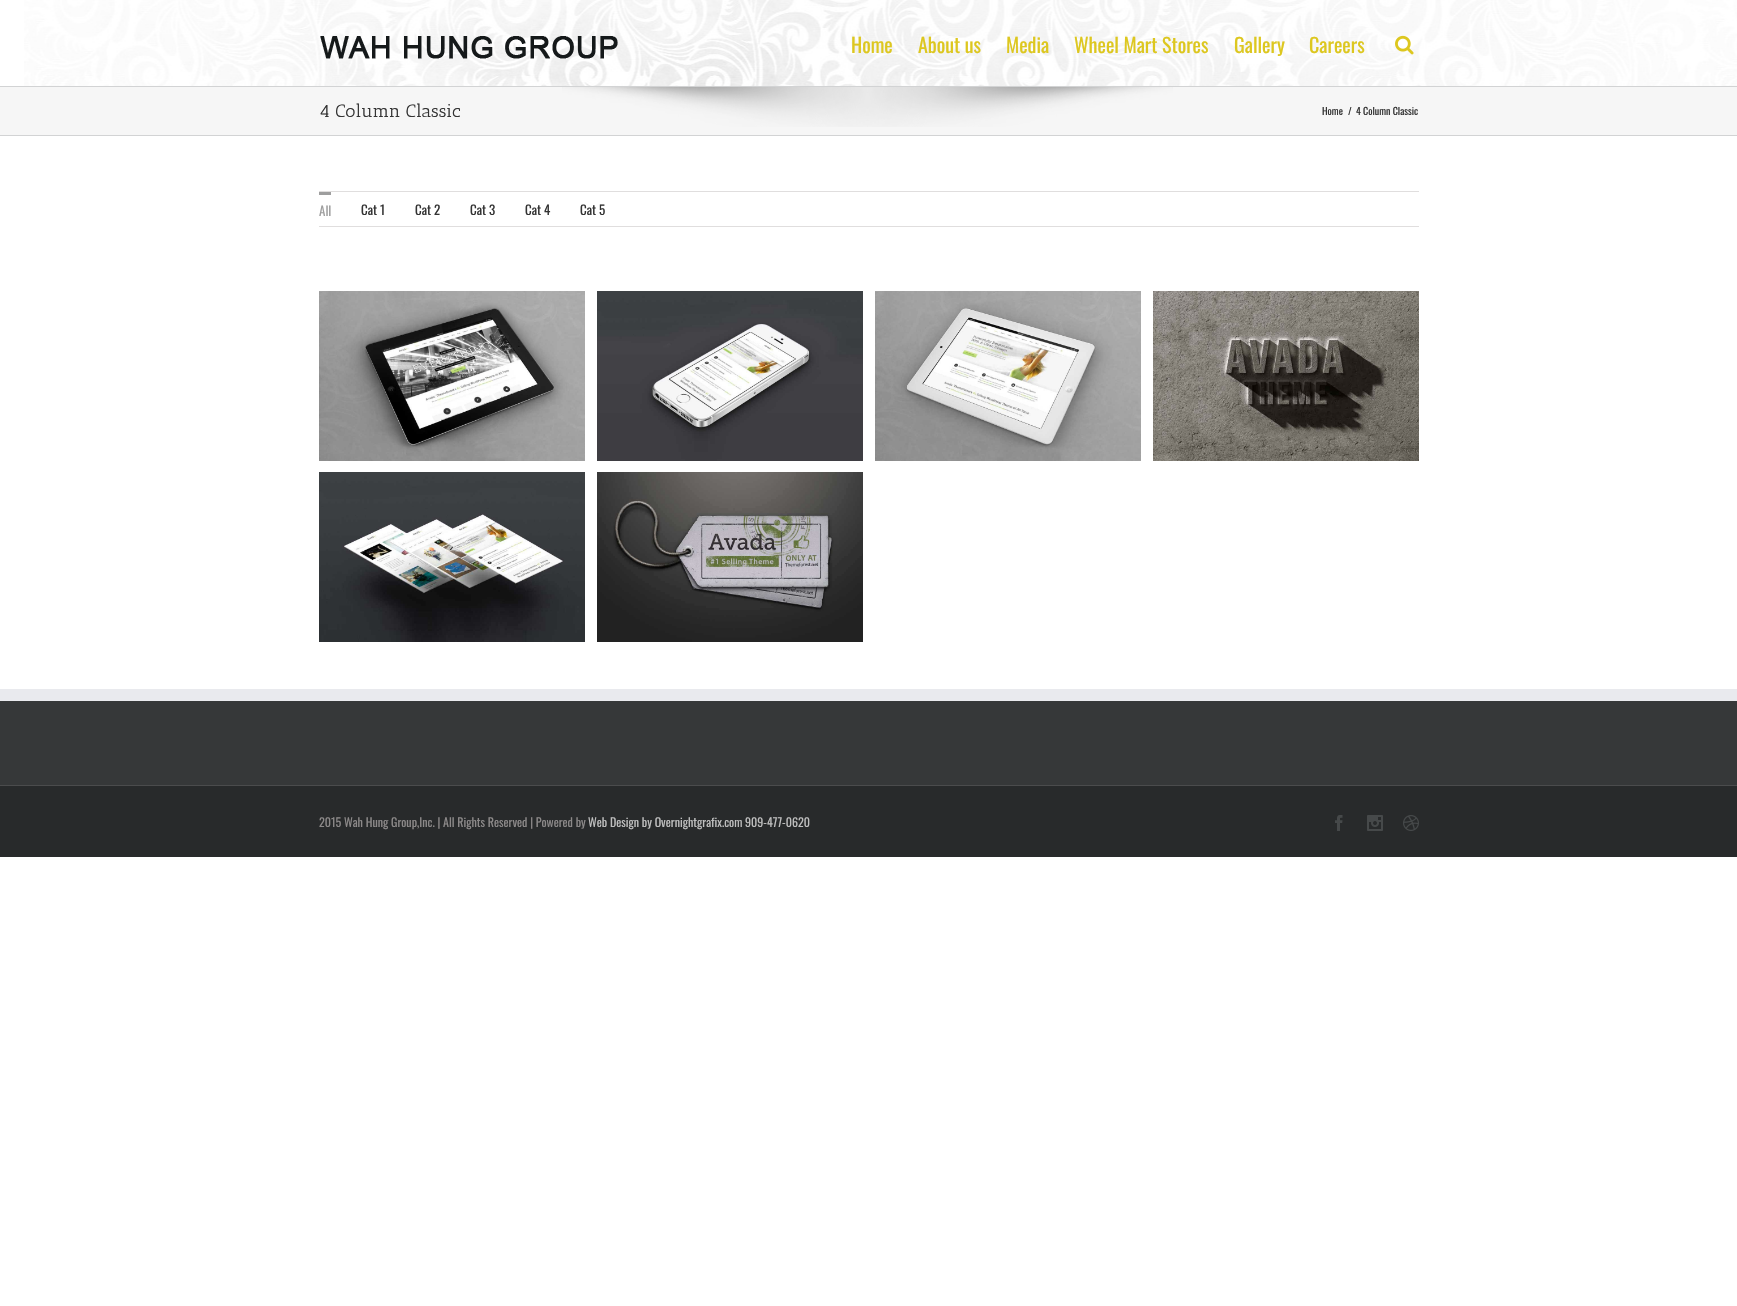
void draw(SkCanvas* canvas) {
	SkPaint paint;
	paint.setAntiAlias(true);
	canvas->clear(0xffffffff);
	canvas->drawImageRect(SkImages::DeferredFromEncodedData(SkData::MakeFromFileName("img1.png")), SkRect::MakeXYWH(24, 0, 1713, 86), SkSamplingOptions());
	canvas->drawImageRect(SkImages::DeferredFromEncodedData(SkData::MakeFromFileName("img2.png")), SkRect::MakeXYWH(320, 36, 298, 23), SkSamplingOptions());
	SkFont f1(fontMgr->matchFamilyStyle("Oswald", SkFontStyle::Normal()), 20);
	f1.setSubpixel(true);
	paint.setColor(0xffddc71f);
	canvas->drawString("Home", 851, 53, f1, paint);
	canvas->drawString("About us", 918, 53, f1, paint);
	canvas->drawString("Media", 1006, 53, f1, paint);
	canvas->drawString("Wheel Mart Stores", 1074, 53, f1, paint);
	canvas->drawString("Gallery", 1234, 53, f1, paint);
	canvas->drawString("Careers", 1309, 53, f1, paint);
	canvas->drawImageRect(SkImages::DeferredFromEncodedData(SkData::MakeFromFileName("img3.png")), SkRect::MakeXYWH(1395, 35, 19, 20), SkSamplingOptions());
	paint.setColor(0xfff6f6f6);
	canvas->drawRect(SkRect::MakeXYWH(0, 87, 1737, 48), paint);
	canvas->drawImageRect(SkImages::DeferredFromEncodedData(SkData::MakeFromFileName("img4.png")), SkRect::MakeXYWH(562, 87, 611, 40), SkSamplingOptions());
	paint.setColor(0xffd2d3d4);
	canvas->drawRect(SkRect::MakeXYWH(0, 86, 1737, 1), paint);
	canvas->drawRect(SkRect::MakeXYWH(0, 135, 1737, 1), paint);
	SkFont f2(fontMgr->matchFamilyStyle("Antic Slab", SkFontStyle::Normal()), 18);
	f2.setSubpixel(true);
	paint.setColor(0xff333333);
	canvas->drawString("4 Column Classic", 319, 117, f2, paint);
	SkFont f3(fontMgr->matchFamilyStyle("Oswald", SkFontStyle::Normal()), 10);
	f3.setSubpixel(true);
	canvas->drawString("Home", 1322, 115, f3, paint);
	canvas->drawString("/", 1348, 115, f3, paint);
	canvas->drawString("4 Column Classic", 1356, 115, f3, paint);
	paint.setColor(0xffe0dede);
	canvas->drawRect(SkRect::MakeXYWH(319, 191, 1100, 1), paint);
	canvas->drawRect(SkRect::MakeXYWH(319, 226, 1100, 1), paint);
	paint.setColor(0xff9e9e9e);
	canvas->drawRect(SkRect::MakeXYWH(319, 192, 12, 3), paint);
	SkFont f4(fontMgr->matchFamilyStyle("Oswald", SkFontStyle::Normal()), 13);
	f4.setSubpixel(true);
	canvas->drawString("All", 319, 216, f4, paint);
	paint.setColor(0xff333333);
	canvas->drawString("Cat 1", 361, 215, f4, paint);
	canvas->drawString("Cat 2", 415, 215, f4, paint);
	canvas->drawString("Cat 3", 470, 215, f4, paint);
	canvas->drawString("Cat 4", 525, 215, f4, paint);
	canvas->drawString("Cat 5", 580, 215, f4, paint);
	canvas->drawImageRect(SkImages::DeferredFromEncodedData(SkData::MakeFromFileName("img5.png")), SkRect::MakeXYWH(319, 291, 266, 170), SkSamplingOptions());
	canvas->drawImageRect(SkImages::DeferredFromEncodedData(SkData::MakeFromFileName("img6.png")), SkRect::MakeXYWH(597, 291, 266, 170), SkSamplingOptions());
	canvas->drawImageRect(SkImages::DeferredFromEncodedData(SkData::MakeFromFileName("img7.png")), SkRect::MakeXYWH(875, 291, 266, 170), SkSamplingOptions());
	canvas->drawImageRect(SkImages::DeferredFromEncodedData(SkData::MakeFromFileName("img8.png")), SkRect::MakeXYWH(1153, 291, 266, 170), SkSamplingOptions());
	canvas->drawImageRect(SkImages::DeferredFromEncodedData(SkData::MakeFromFileName("img9.png")), SkRect::MakeXYWH(319, 472, 266, 170), SkSamplingOptions());
	canvas->drawImageRect(SkImages::DeferredFromEncodedData(SkData::MakeFromFileName("img10.png")), SkRect::MakeXYWH(597, 472, 266, 170), SkSamplingOptions());
	paint.setColor(0xff363839);
	canvas->drawRect(SkRect::MakeXYWH(0, 701, 1737, 84), paint);
	paint.setColor(0xffe9eaee);
	canvas->drawRect(SkRect::MakeXYWH(0, 689, 1737, 12), paint);
	paint.setColor(0xff282a2b);
	canvas->drawRect(SkRect::MakeXYWH(0, 786, 1737, 71), paint);
	paint.setColor(0xff4b4c4d);
	canvas->drawRect(SkRect::MakeXYWH(0, 785, 1737, 1), paint);
	SkFont f5(fontMgr->matchFamilyStyle("Oswald", SkFontStyle::Normal()), 12);
	f5.setSubpixel(true);
	paint.setColor(0xff8c8989);
	canvas->drawString("2015 Wah Hung Group,Inc. | All Rights Reserved | Powered by", 319, 827, f5, paint);
	paint.setColor(0xffbfbfbf);
	canvas->drawString("Web Design by Overnightgrafix.com 909-477-0620", 588, 827, f5, paint);
	canvas->drawImageRect(SkImages::DeferredFromEncodedData(SkData::MakeFromFileName("img11.png")), SkRect::MakeXYWH(1335, 815, 8, 16), SkSamplingOptions());
	canvas->drawImageRect(SkImages::DeferredFromEncodedData(SkData::MakeFromFileName("img12.png")), SkRect::MakeXYWH(1367, 815, 16, 16), SkSamplingOptions());
	canvas->drawImageRect(SkImages::DeferredFromEncodedData(SkData::MakeFromFileName("img13.png")), SkRect::MakeXYWH(1403, 815, 16, 16), SkSamplingOptions());
}
